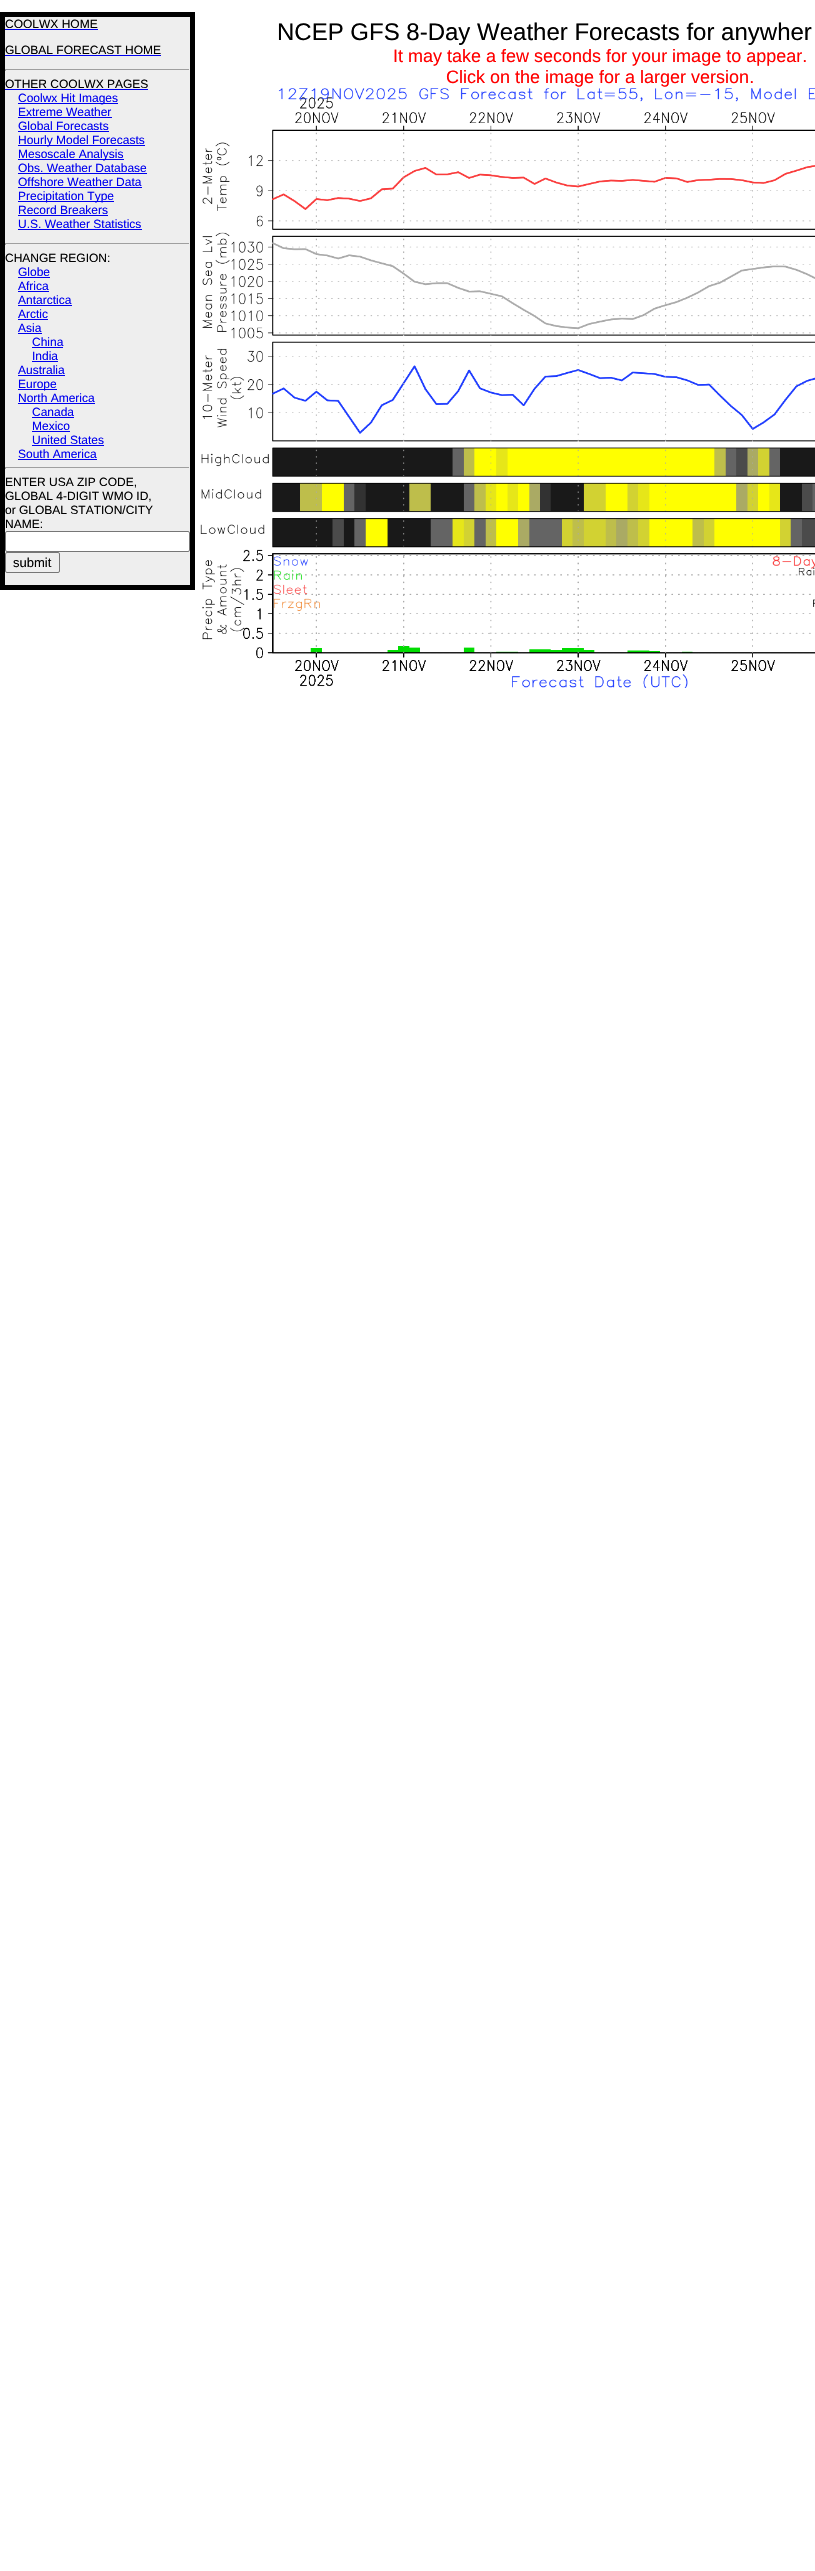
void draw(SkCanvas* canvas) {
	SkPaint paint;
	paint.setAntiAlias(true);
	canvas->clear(0xffffffff);
	paint.setColor(0xffeeeeee);
	canvas->drawRect(SkRect::MakeXYWH(2.5, 14.5, 190, 573), paint);
	paint.setStroke(true);
	paint.setStrokeWidth(5);
	paint.setColor(0xff000000);
	canvas->drawRect(SkRect::MakeXYWH(2.5, 14.5, 190, 573), paint);
	SkFont f1(fontMgr->matchFamilyStyle("Liberation Sans", SkFontStyle::Normal()), 12);
	f1.setSubpixel(true);
	paint.setStroke(false);
	canvas->drawString("COOLWX HOME", 5, 28, f1, paint);
	paint.setColor(0xff0000ee);
	canvas->drawRect(SkRect::MakeXYWH(5, 29, 93, 1), paint);
	paint.setColor(0xff000000);
	canvas->drawString("GLOBAL FORECAST HOME", 5, 54, f1, paint);
	paint.setColor(0xff0000ee);
	canvas->drawRect(SkRect::MakeXYWH(5, 55, 156, 1), paint);
	paint.setColor(0xff9f9f9f);
	canvas->drawRect(SkRect::MakeXYWH(5, 69, 185, 1), paint);
	paint.setColor(0xffeeeeee);
	canvas->drawRect(SkRect::MakeXYWH(189, 69, 1, 2), paint);
	paint.setColor(0xff9f9f9f);
	canvas->drawRect(SkRect::MakeXYWH(5, 69, 1, 2), paint);
	paint.setColor(0xff000000);
	canvas->drawString("OTHER COOLWX PAGES", 5, 88, f1, paint);
	paint.setColor(0xff0000ee);
	canvas->drawRect(SkRect::MakeXYWH(5, 89, 143, 1), paint);
	canvas->drawRect(SkRect::MakeXYWH(18, 103, 100, 1), paint);
	canvas->drawString("Coolwx Hit Images", 18, 102, f1, paint);
	canvas->drawString("Extreme Weather", 18, 116, f1, paint);
	canvas->drawRect(SkRect::MakeXYWH(18, 117, 94, 1), paint);
	canvas->drawString("Global Forecasts", 18, 130, f1, paint);
	canvas->drawRect(SkRect::MakeXYWH(18, 131, 91, 1), paint);
	canvas->drawRect(SkRect::MakeXYWH(18, 145, 127, 1), paint);
	canvas->drawString("Hourly Model Forecasts", 18, 144, f1, paint);
	canvas->drawRect(SkRect::MakeXYWH(18, 159, 106, 1), paint);
	canvas->drawString("Mesoscale Analysis", 18, 158, f1, paint);
	canvas->drawString("Obs. Weather Database", 18, 172, f1, paint);
	canvas->drawRect(SkRect::MakeXYWH(18, 173, 129, 1), paint);
	canvas->drawString("Offshore Weather Data", 18, 186, f1, paint);
	canvas->drawRect(SkRect::MakeXYWH(18, 187, 124, 1), paint);
	canvas->drawRect(SkRect::MakeXYWH(18, 201, 96, 1), paint);
	canvas->drawString("Precipitation Type", 18, 200, f1, paint);
	canvas->drawString("Record Breakers", 18, 214, f1, paint);
	canvas->drawRect(SkRect::MakeXYWH(18, 215, 90, 1), paint);
	canvas->drawString("U.S. Weather Statistics", 18, 228, f1, paint);
	canvas->drawRect(SkRect::MakeXYWH(18, 229, 124, 1), paint);
	paint.setColor(0xff9f9f9f);
	canvas->drawRect(SkRect::MakeXYWH(5, 243, 185, 1), paint);
	paint.setColor(0xffeeeeee);
	canvas->drawRect(SkRect::MakeXYWH(189, 243, 1, 2), paint);
	paint.setColor(0xff9f9f9f);
	canvas->drawRect(SkRect::MakeXYWH(5, 243, 1, 2), paint);
	paint.setColor(0xff000000);
	canvas->drawString("CHANGE REGION:", 5, 262, f1, paint);
	paint.setColor(0xff0000ee);
	canvas->drawString("Globe", 18, 276, f1, paint);
	canvas->drawRect(SkRect::MakeXYWH(18, 277, 32, 1), paint);
	canvas->drawString("Africa", 18, 290, f1, paint);
	canvas->drawRect(SkRect::MakeXYWH(18, 291, 31, 1), paint);
	canvas->drawString("Antarctica", 18, 304, f1, paint);
	canvas->drawRect(SkRect::MakeXYWH(18, 305, 54, 1), paint);
	canvas->drawString("Arctic", 18, 318, f1, paint);
	canvas->drawRect(SkRect::MakeXYWH(18, 319, 30, 1), paint);
	canvas->drawString("Asia", 18, 332, f1, paint);
	canvas->drawRect(SkRect::MakeXYWH(18, 333, 24, 1), paint);
	canvas->drawString("China", 32, 346, f1, paint);
	canvas->drawRect(SkRect::MakeXYWH(32, 347, 31, 1), paint);
	canvas->drawString("India", 32, 360, f1, paint);
	canvas->drawRect(SkRect::MakeXYWH(32, 361, 26, 1), paint);
	canvas->drawString("Australia", 18, 374, f1, paint);
	canvas->drawRect(SkRect::MakeXYWH(18, 375, 47, 1), paint);
	canvas->drawRect(SkRect::MakeXYWH(18, 389, 39, 1), paint);
	canvas->drawString("Europe", 18, 388, f1, paint);
	canvas->drawString("North America", 18, 402, f1, paint);
	canvas->drawRect(SkRect::MakeXYWH(18, 403, 77, 1), paint);
	canvas->drawString("Canada", 32, 416, f1, paint);
	canvas->drawRect(SkRect::MakeXYWH(32, 417, 42, 1), paint);
	canvas->drawString("Mexico", 32, 430, f1, paint);
	canvas->drawRect(SkRect::MakeXYWH(32, 431, 38, 1), paint);
	canvas->drawString("United States", 32, 444, f1, paint);
	canvas->drawRect(SkRect::MakeXYWH(32, 445, 72, 1), paint);
	canvas->drawString("South America", 18, 458, f1, paint);
	canvas->drawRect(SkRect::MakeXYWH(18, 459, 79, 1), paint);
	paint.setColor(0xff9f9f9f);
	canvas->drawRect(SkRect::MakeXYWH(5, 467, 185, 1), paint);
	paint.setColor(0xffeeeeee);
	canvas->drawRect(SkRect::MakeXYWH(189, 467, 1, 2), paint);
	paint.setColor(0xff9f9f9f);
	canvas->drawRect(SkRect::MakeXYWH(5, 467, 1, 2), paint);
	paint.setColor(0xff000000);
	canvas->drawString("ENTER USA ZIP CODE,", 5, 486, f1, paint);
	canvas->drawString("GLOBAL 4-DIGIT WMO ID,", 5, 500, f1, paint);
	canvas->drawString("or GLOBAL STATION/CITY", 5, 514, f1, paint);
	canvas->drawString("NAME:", 5, 528, f1, paint);
	paint.setColor(0xffffffff);
	canvas->drawRoundRect(SkRect::MakeXYWH(5.5, 531.5, 184, 20), 1.5, 1.5, paint);
	paint.setStroke(true);
	paint.setStrokeWidth(1);
	paint.setColor(0xff767676);
	canvas->drawRoundRect(SkRect::MakeXYWH(5.5, 531.5, 184, 20), 1.5, 1.5, paint);
	canvas->drawRoundRect(SkRect::MakeXYWH(5.5, 552.5, 54, 20), 1.5, 1.5, paint);
	SkFont f2(fontMgr->matchFamilyStyle("Liberation Sans", SkFontStyle::Normal()), 13);
	f2.setSubpixel(true);
	paint.setStroke(false);
	paint.setColor(0xff000000);
	canvas->drawString("submit", 13, 567, f2, paint);
	SkFont f3(fontMgr->matchFamilyStyle("Liberation Sans", SkFontStyle::Normal()), 24);
	f3.setSubpixel(true);
	canvas->drawString("NCEP GFS 8-Day Weather Forecasts for anywher", 277, 40, f3, paint);
	SkFont f4(fontMgr->matchFamilyStyle("Liberation Sans", SkFontStyle::Normal()), 18);
	f4.setSubpixel(true);
	paint.setColor(0xffff0000);
	canvas->drawString("It may take a few seconds for your image to appear.", 393, 62, f4, paint);
	canvas->drawString("Click on the image for a larger version.", 446, 83, f4, paint);
	canvas->drawImageRect(SkImages::DeferredFromEncodedData(SkData::MakeFromFileName("img1.png")), SkRect::MakeXYWH(200, 88, 615, 600), SkSamplingOptions());
}
